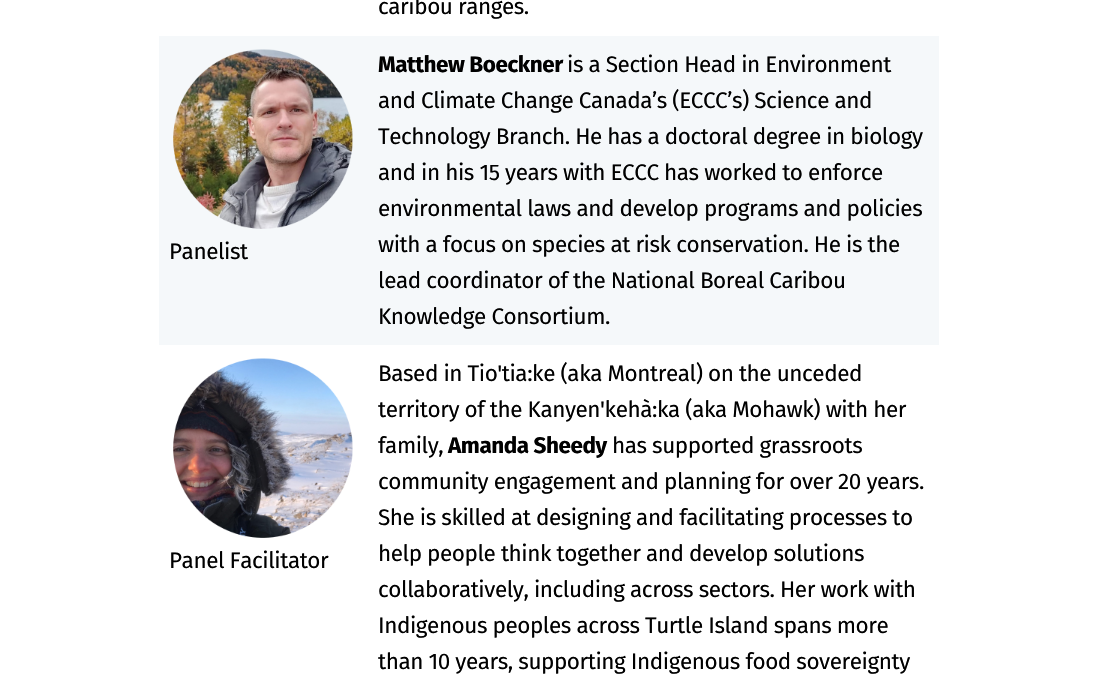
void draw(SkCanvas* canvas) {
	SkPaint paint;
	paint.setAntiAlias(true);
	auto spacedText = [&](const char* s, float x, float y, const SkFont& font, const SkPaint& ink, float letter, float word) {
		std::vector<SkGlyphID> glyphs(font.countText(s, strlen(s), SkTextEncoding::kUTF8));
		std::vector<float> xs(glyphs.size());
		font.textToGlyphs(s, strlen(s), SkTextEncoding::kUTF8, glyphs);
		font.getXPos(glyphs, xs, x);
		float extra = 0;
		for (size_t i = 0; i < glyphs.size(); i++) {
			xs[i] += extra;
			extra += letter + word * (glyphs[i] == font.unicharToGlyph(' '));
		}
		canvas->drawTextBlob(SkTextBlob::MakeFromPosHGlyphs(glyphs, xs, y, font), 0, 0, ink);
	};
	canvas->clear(0xffffffff);
	SkFont f1(fontMgr->matchFamilyStyle("Fira Sans", SkFontStyle::Normal()), 22.5);
	f1.setSubpixel(true);
	paint.setColor(0xff000000);
	spacedText("caribou ranges.", 378, 14, f1, paint, -0.45, 0);
	paint.setColor(0xfff5f8fa);
	canvas->drawRect(SkRect::MakeXYWH(159, 36, 780, 309), paint);
	canvas->drawImageRect(SkImages::DeferredFromEncodedData(SkData::MakeFromFileName("img1.png")), SkRect::MakeXYWH(173, 49, 180, 180), SkSamplingOptions());
	paint.setColor(0xff000000);
	spacedText("Panelist", 169, 259, f1, paint, -0.45, 0);
	SkFont f2(fontMgr->matchFamilyStyle("Fira Sans", SkFontStyle::Bold()), 22.5);
	f2.setSubpixel(true);
	spacedText("Matthew Boeckner", 378, 72, f2, paint, -0.45, 0);
	spacedText("is a Section Head in Environment", 567, 72, f1, paint, -0.45, 0);
	spacedText("and Climate Change Canada’s (ECCC’s) Science and", 378, 108, f1, paint, -0.45, 0);
	spacedText("Technology Branch. He has a doctoral degree in biology", 378, 144, f1, paint, -0.45, 0);
	spacedText("and in his 15 years with ECCC has worked to enforce", 378, 180, f1, paint, -0.45, 0);
	spacedText("environmental laws and develop programs and policies", 378, 216, f1, paint, -0.45, 0);
	spacedText("with a focus on species at risk conservation. He is the", 378, 252, f1, paint, -0.45, 0);
	spacedText("lead coordinator of the National Boreal Caribou", 378, 288, f1, paint, -0.45, 0);
	spacedText("Knowledge Consortium.", 378, 324, f1, paint, -0.45, 0);
	canvas->drawImageRect(SkImages::DeferredFromEncodedData(SkData::MakeFromFileName("img2.png")), SkRect::MakeXYWH(173, 358, 180, 180), SkSamplingOptions());
	spacedText("Panel Facilitator", 169, 568, f1, paint, -0.45, 0);
	spacedText("Based in Tio'tia:ke (aka Montreal) on the unceded", 378, 381, f1, paint, -0.45, 0);
	spacedText("territory of the Kanyen'kehà:ka (aka Mohawk) with her", 378, 417, f1, paint, -0.45, 0);
	spacedText("family,", 378, 453, f1, paint, -0.45, 0);
	spacedText("Amanda Sheedy", 448, 453, f2, paint, -0.45, 0);
	spacedText("has supported grassroots", 612, 453, f1, paint, -0.45, 0);
	spacedText("community engagement and planning for over 20 years.", 378, 489, f1, paint, -0.45, 0);
	spacedText("She is skilled at designing and facilitating processes to", 378, 525, f1, paint, -0.45, 0);
	spacedText("help people think together and develop solutions", 378, 561, f1, paint, -0.45, 0);
	spacedText("collaboratively, including across sectors. Her work with", 378, 597, f1, paint, -0.45, 0);
	spacedText("Indigenous peoples across Turtle Island spans more", 378, 633, f1, paint, -0.45, 0);
	spacedText("than 10 years, supporting Indigenous food sovereignty", 378, 669, f1, paint, -0.45, 0);
}
